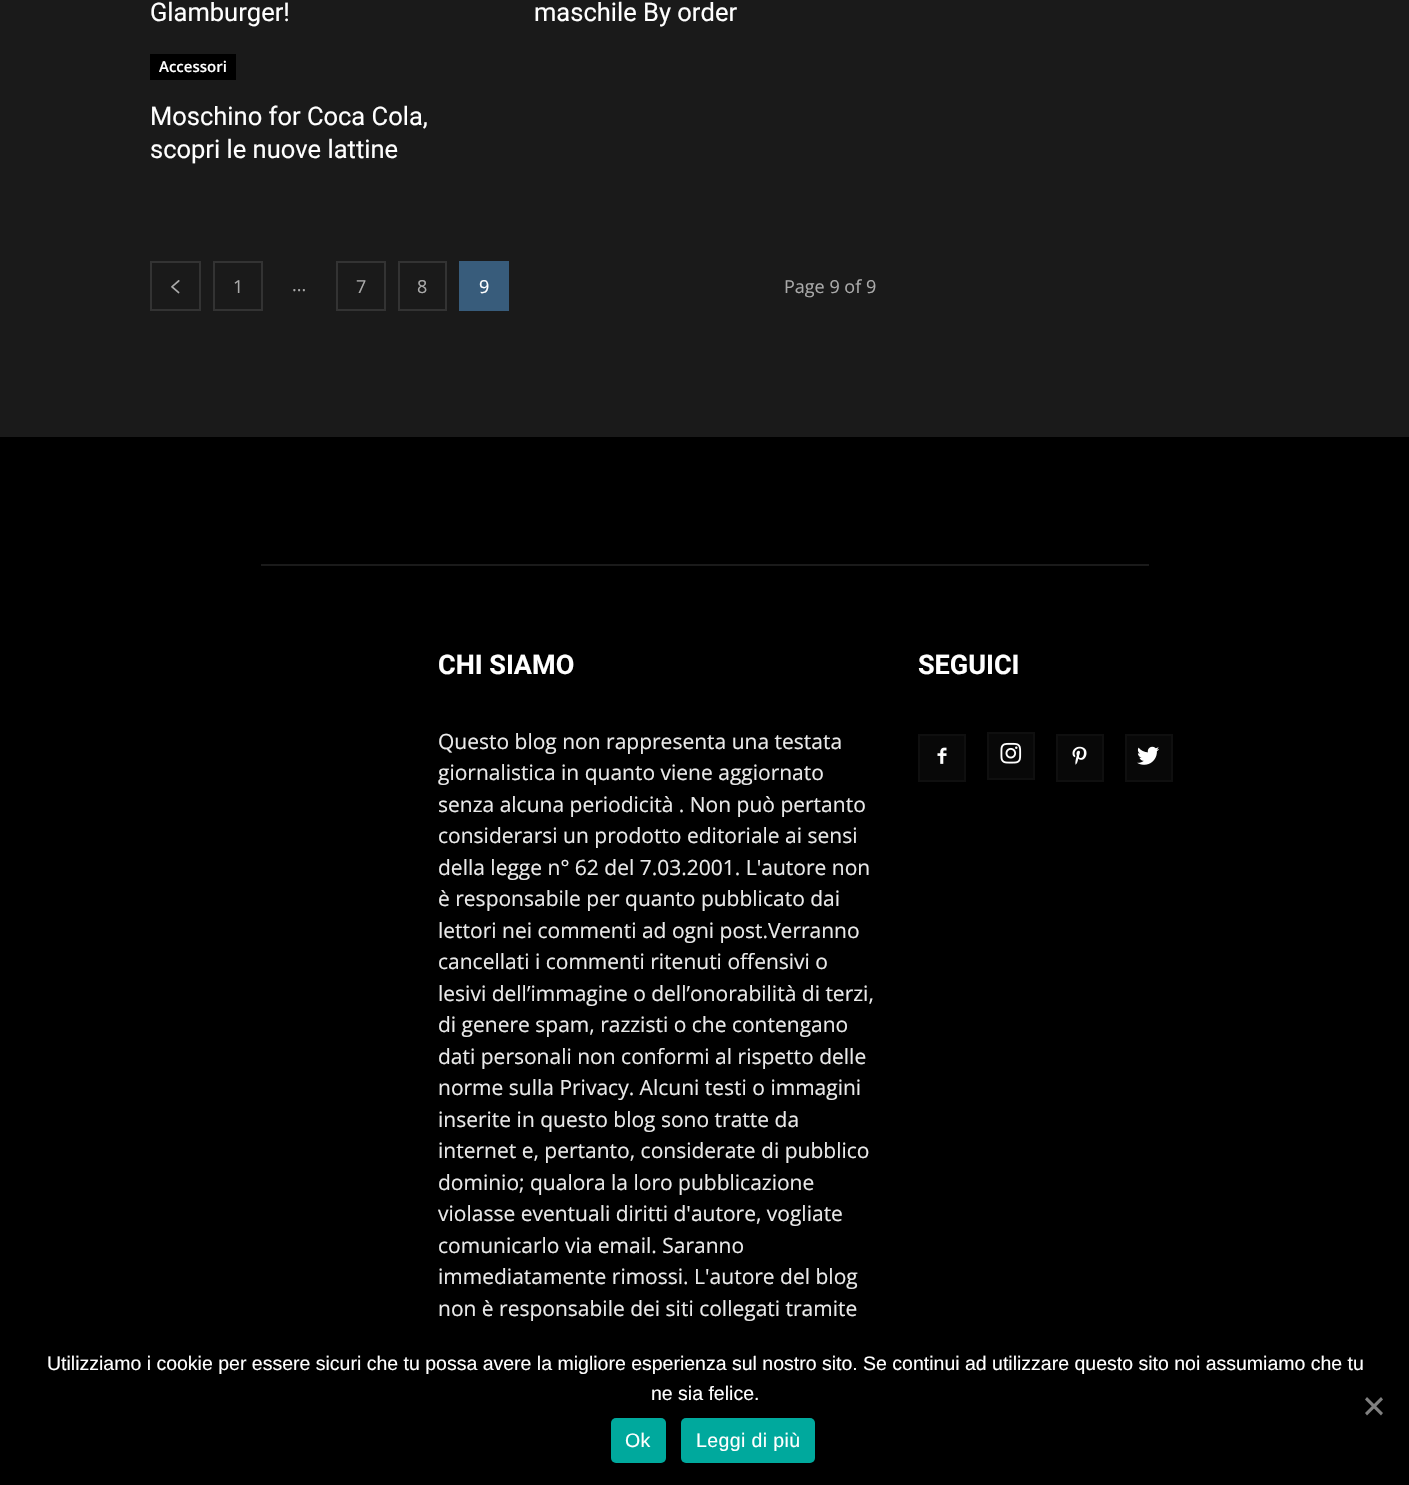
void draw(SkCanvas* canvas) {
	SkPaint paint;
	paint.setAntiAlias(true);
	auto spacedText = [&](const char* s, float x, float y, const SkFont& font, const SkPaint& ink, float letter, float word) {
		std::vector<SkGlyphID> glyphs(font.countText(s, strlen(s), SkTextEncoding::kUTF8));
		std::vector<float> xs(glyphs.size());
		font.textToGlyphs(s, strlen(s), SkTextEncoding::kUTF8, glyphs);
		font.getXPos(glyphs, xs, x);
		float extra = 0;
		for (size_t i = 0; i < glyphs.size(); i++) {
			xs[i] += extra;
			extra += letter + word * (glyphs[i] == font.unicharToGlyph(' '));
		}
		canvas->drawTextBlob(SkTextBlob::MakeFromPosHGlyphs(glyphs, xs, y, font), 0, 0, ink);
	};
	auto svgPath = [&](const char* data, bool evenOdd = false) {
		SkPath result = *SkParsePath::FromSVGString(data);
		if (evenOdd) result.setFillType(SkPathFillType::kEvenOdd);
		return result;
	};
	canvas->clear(0xff1a1a1a);
	SkFont f1(fontMgr->matchFamilyStyle("Roboto", SkFontStyle::Normal()), 25.5);
	f1.setSubpixel(true);
	paint.setColor(0xffffffff);
	canvas->drawString("Glamburger!", 150, 21, f1, paint);
	canvas->drawString("maschile By order", 534, 21, f1, paint);
	paint.setColor(0xff000000);
	canvas->drawRect(SkRect::MakeXYWH(150, 54, 86, 26), paint);
	SkFont f2(fontMgr->matchFamilyStyle("Open Sans", SkFontStyle(600, SkFontStyle::kNormal_Width, SkFontStyle::kUpright_Slant)), 15);
	f2.setSubpixel(true);
	paint.setColor(0xffffffff);
	canvas->drawString("Accessori", 159, 72, f2, paint);
	canvas->drawString("Moschino for Coca Cola,", 150, 125, f1, paint);
	canvas->drawString("scopri le nuove lattine", 150, 158, f1, paint);
	paint.setStroke(true);
	paint.setStrokeWidth(2);
	paint.setColor(0xff333333);
	canvas->drawRect(SkRect::MakeXYWH(151, 262, 49, 48), paint);
	canvas->drawImageRect(SkImages::DeferredFromEncodedData(SkData::MakeFromFileName("img1.png")), SkRect::MakeXYWH(171, 280, 9, 14), SkSamplingOptions());
	canvas->drawRect(SkRect::MakeXYWH(214, 262, 48, 48), paint);
	SkFont f3(fontMgr->matchFamilyStyle("Open Sans", SkFontStyle::Normal()), 18);
	f3.setSubpixel(true);
	paint.setStroke(false);
	paint.setColor(0xffaaaaaa);
	canvas->drawString("1", 233, 293, f3, paint);
	canvas->drawString("...", 292, 291, f3, paint);
	paint.setStroke(true);
	paint.setColor(0xff333333);
	canvas->drawRect(SkRect::MakeXYWH(337, 262, 48, 48), paint);
	paint.setStroke(false);
	paint.setColor(0xffaaaaaa);
	canvas->drawString("7", 356, 293, f3, paint);
	paint.setStroke(true);
	paint.setColor(0xff333333);
	canvas->drawRect(SkRect::MakeXYWH(399, 262, 47, 48), paint);
	paint.setStroke(false);
	paint.setColor(0xffaaaaaa);
	canvas->drawString("8", 417, 293, f3, paint);
	paint.setColor(0xff385c7b);
	canvas->drawRect(SkRect::MakeXYWH(459, 261, 50, 50), paint);
	paint.setColor(0xffffffff);
	canvas->drawString("9", 479, 293, f3, paint);
	paint.setColor(0xffaaaaaa);
	canvas->drawString("Page 9 of 9", 784, 293, f3, paint);
	paint.setColor(0xff000000);
	canvas->drawRect(SkRect::MakeXYWH(0, 437, 1409, 1048), paint);
	paint.setColor(0xff1a1a1a);
	canvas->drawRect(SkRect::MakeXYWH(261, 564, 888, 2), paint);
	SkFont f4(fontMgr->matchFamilyStyle("Roboto", SkFontStyle::Bold()), 27);
	f4.setSubpixel(true);
	paint.setColor(0xffffffff);
	canvas->drawString("CHI SIAMO", 438, 674, f4, paint);
	SkFont f5(fontMgr->matchFamilyStyle("Open Sans", SkFontStyle::Normal()), 21);
	f5.setSubpixel(true);
	paint.setColor(0xffeaeaea);
	canvas->drawString("Questo blog non rappresenta una testata", 438, 749, f5, paint);
	canvas->drawString("giornalistica in quanto viene aggiornato", 438, 780, f5, paint);
	canvas->drawString("senza alcuna periodicità . Non può pertanto", 438, 812, f5, paint);
	canvas->drawString("considerarsi un prodotto editoriale ai sensi", 438, 843, f5, paint);
	canvas->drawString("della legge n° 62 del 7.03.2001. L'autore non", 438, 875, f5, paint);
	canvas->drawString("è responsabile per quanto pubblicato dai", 438, 906, f5, paint);
	canvas->drawString("lettori nei commenti ad ogni post.Verranno", 438, 938, f5, paint);
	canvas->drawString("cancellati i commenti ritenuti offensivi o", 438, 969, f5, paint);
	canvas->drawString("lesivi dell’immagine o dell’onorabilità di terzi,", 438, 1001, f5, paint);
	canvas->drawString("di genere spam, razzisti o che contengano", 438, 1032, f5, paint);
	canvas->drawString("dati personali non conformi al rispetto delle", 438, 1064, f5, paint);
	canvas->drawString("norme sulla Privacy. Alcuni testi o immagini", 438, 1095, f5, paint);
	canvas->drawString("inserite in questo blog sono tratte da", 438, 1127, f5, paint);
	canvas->drawString("internet e, pertanto, considerate di pubblico", 438, 1158, f5, paint);
	canvas->drawString("dominio; qualora la loro pubblicazione", 438, 1190, f5, paint);
	canvas->drawString("violasse eventuali diritti d'autore, vogliate", 438, 1221, f5, paint);
	canvas->drawString("comunicarlo via email. Saranno", 438, 1253, f5, paint);
	canvas->drawString("immediatamente rimossi. L'autore del blog", 438, 1284, f5, paint);
	canvas->drawString("non è responsabile dei siti collegati tramite", 438, 1316, f5, paint);
	paint.setColor(0xffffffff);
	canvas->drawString("SEGUICI", 918, 674, f4, paint);
	paint.setColor(0xff080808);
	canvas->drawRect(SkRect::MakeXYWH(920, 736, 44, 44), paint);
	canvas->drawImageRect(SkImages::DeferredFromEncodedData(SkData::MakeFromFileName("img2.png")), SkRect::MakeXYWH(937, 747, 10, 17), SkSamplingOptions());
	paint.setStroke(true);
	paint.setColor(0xff0f0f0f);
	canvas->drawRect(SkRect::MakeXYWH(919, 735, 46, 46), paint);
	paint.setStroke(false);
	paint.setColor(0xff080808);
	canvas->drawRect(SkRect::MakeXYWH(989, 734, 44, 44), paint);
	canvas->drawImageRect(SkImages::DeferredFromEncodedData(SkData::MakeFromFileName("img3.png")), SkRect::MakeXYWH(1000, 742, 22, 22), SkSamplingOptions());
	paint.setStroke(true);
	paint.setColor(0xff0f0f0f);
	canvas->drawRect(SkRect::MakeXYWH(988, 733, 46, 46), paint);
	paint.setStroke(false);
	paint.setColor(0xff080808);
	canvas->drawRect(SkRect::MakeXYWH(1058, 736, 44, 44), paint);
	canvas->drawImageRect(SkImages::DeferredFromEncodedData(SkData::MakeFromFileName("img4.png")), SkRect::MakeXYWH(1072, 746, 15, 19), SkSamplingOptions());
	paint.setStroke(true);
	paint.setColor(0xff0f0f0f);
	canvas->drawRect(SkRect::MakeXYWH(1057, 735, 46, 46), paint);
	paint.setStroke(false);
	paint.setColor(0xff080808);
	canvas->drawRect(SkRect::MakeXYWH(1127, 736, 44, 44), paint);
	canvas->drawImageRect(SkImages::DeferredFromEncodedData(SkData::MakeFromFileName("img5.png")), SkRect::MakeXYWH(1137, 746, 22, 19), SkSamplingOptions());
	paint.setStroke(true);
	paint.setColor(0xff0f0f0f);
	canvas->drawRect(SkRect::MakeXYWH(1126, 735, 46, 46), paint);
	SkFont f6(fontMgr->matchFamilyStyle("Liberation Sans", SkFontStyle::Normal()), 19.5);
	f6.setSubpixel(true);
	paint.setStroke(false);
	paint.setColor(0xffffffff);
	canvas->drawString("Utilizziamo i cookie per essere sicuri che tu possa avere la migliore esperienza sul nostro sito. Se continui ad utilizzare questo sito noi assumiamo che tu", 47, 1370, f6, paint);
	canvas->drawString("ne sia felice.", 651, 1400, f6, paint);
	paint.setColor(0xff808080);
	canvas->drawPath(svgPath("M1381 1397L1383 1399.5L1367 1415.5L1365 1413Z"), paint);
	canvas->drawPath(svgPath("M1365 1399.5L1367 1397L1383 1413L1381 1415.5Z"), paint);
	paint.setColor(0xff00a99d);
	canvas->drawRoundRect(SkRect::MakeXYWH(611, 1418, 55, 45), 5, 5, paint);
	paint.setColor(0xffffffff);
	spacedText("Ok", 625, 1447, f6, paint, 0.4, 0);
	paint.setColor(0xff00a99d);
	canvas->drawRoundRect(SkRect::MakeXYWH(681, 1418, 134, 45), 5, 5, paint);
	paint.setColor(0xffffffff);
	spacedText("Leggi di più", 696, 1447, f6, paint, 0.4, 0);
}
